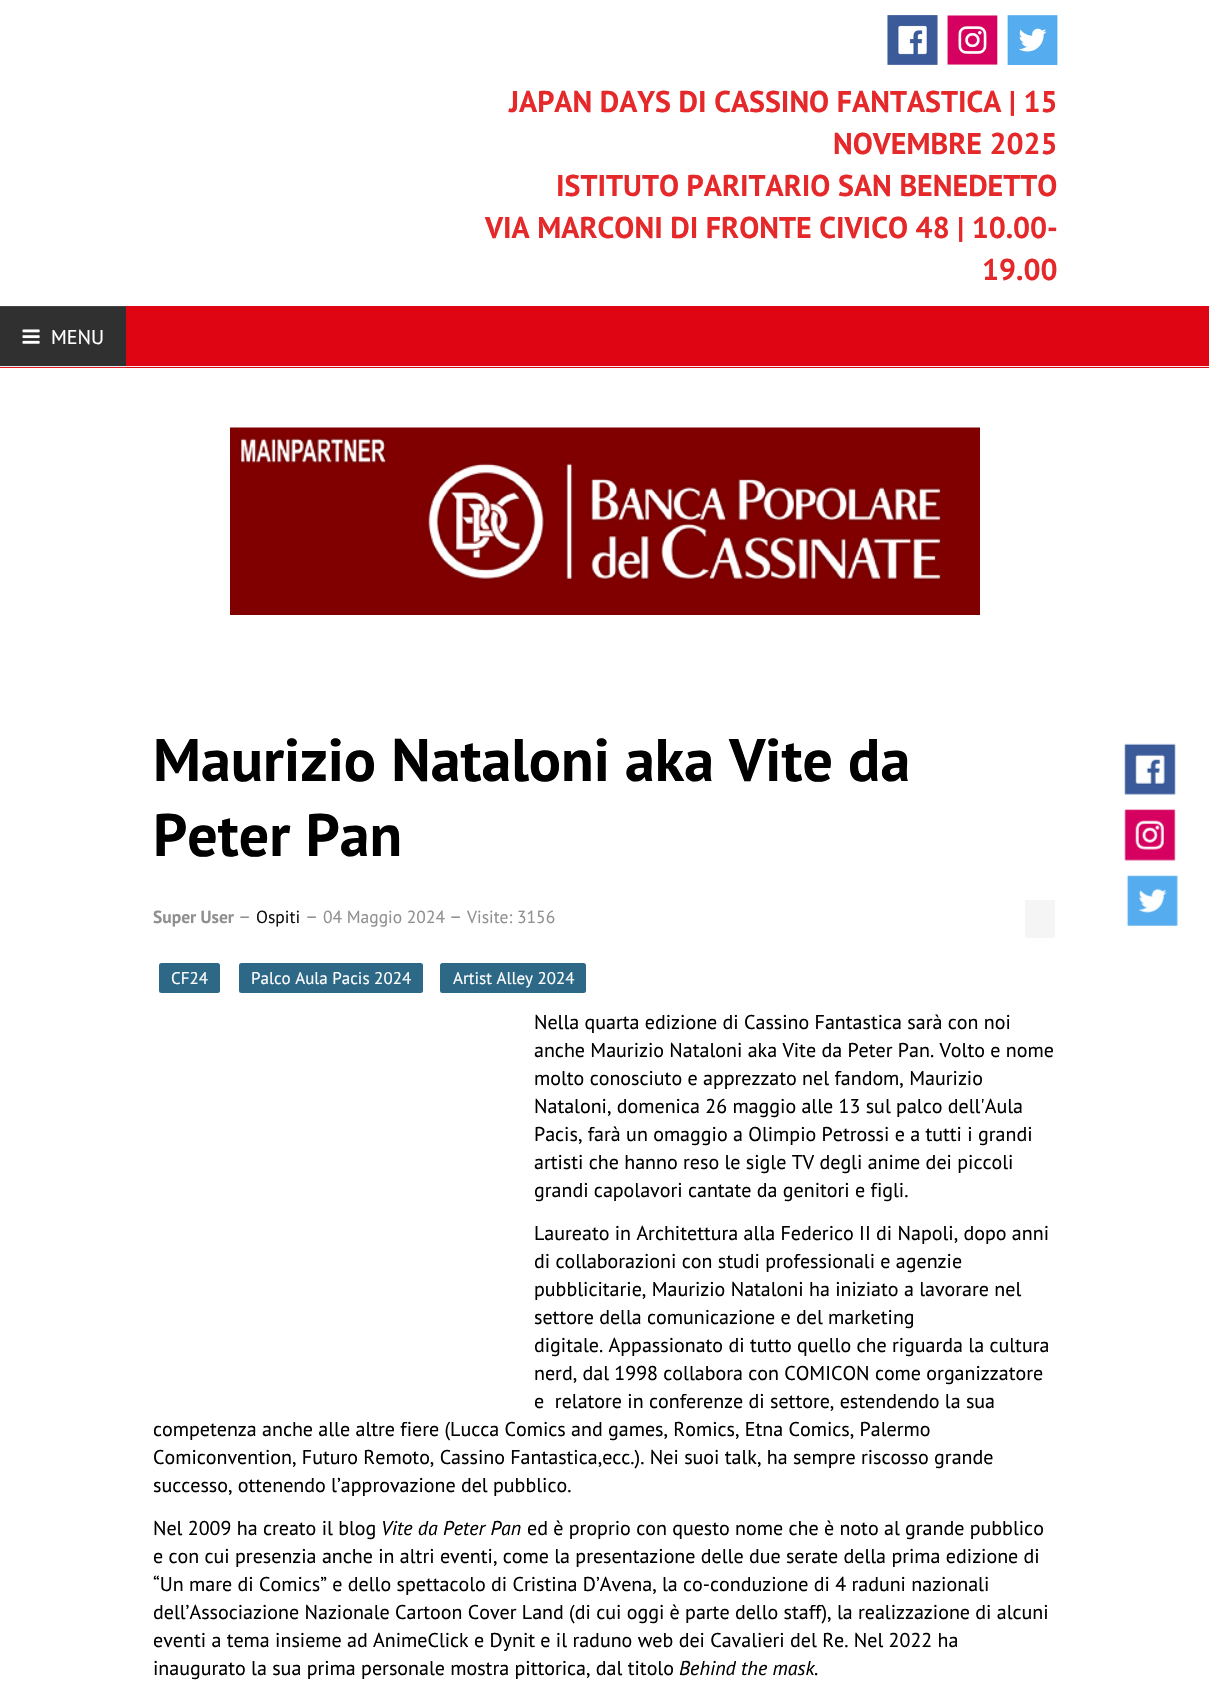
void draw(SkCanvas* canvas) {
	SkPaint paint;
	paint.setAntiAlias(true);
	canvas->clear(0xffffffff);
	canvas->drawImageRect(SkImages::DeferredFromEncodedData(SkData::MakeFromFileName("img1.png")), SkRect::MakeXYWH(887, 15, 51, 50), SkSamplingOptions());
	canvas->drawImageRect(SkImages::DeferredFromEncodedData(SkData::MakeFromFileName("img2.png")), SkRect::MakeXYWH(947, 15, 51, 50), SkSamplingOptions());
	canvas->drawImageRect(SkImages::DeferredFromEncodedData(SkData::MakeFromFileName("img3.png")), SkRect::MakeXYWH(1007, 15, 51, 50), SkSamplingOptions());
	SkFont f1(fontMgr->matchFamilyStyle("PT Sans", SkFontStyle::Bold()), 30);
	f1.setSubpixel(true);
	paint.setColor(0xffe5292a);
	canvas->drawString("JAPAN DAYS DI CASSINO FANTASTICA | 15", 509, 112, f1, paint);
	canvas->drawString("NOVEMBRE 2025", 833, 154, f1, paint);
	canvas->drawString("ISTITUTO PARITARIO SAN BENEDETTO", 556, 196, f1, paint);
	canvas->drawString("VIA MARCONI DI FRONTE CIVICO 48 | 10.00-", 485, 238, f1, paint);
	canvas->drawString("19.00", 982, 280, f1, paint);
	paint.setColor(0xffdf0513);
	canvas->drawRect(SkRect::MakeXYWH(126, 306, 1083, 62), paint);
	paint.setColor(0xffe11724);
	canvas->drawRect(SkRect::MakeXYWH(0, 367, 126, 1), paint);
	paint.setColor(0xffeeeeee);
	canvas->drawRect(SkRect::MakeXYWH(126, 366, 1083, 1), paint);
	paint.setColor(0xffefefef);
	canvas->drawRect(SkRect::MakeXYWH(0, 366, 126, 1), paint);
	paint.setColor(0xff303030);
	canvas->drawRect(SkRect::MakeXYWH(0, 307, 126, 59), paint);
	paint.setColor(0xff454545);
	canvas->drawRect(SkRect::MakeXYWH(0, 306, 126, 1), paint);
	canvas->drawImageRect(SkImages::DeferredFromEncodedData(SkData::MakeFromFileName("img4.png")), SkRect::MakeXYWH(22, 329, 18, 15), SkSamplingOptions());
	SkFont f2(fontMgr->matchFamilyStyle("PT Sans", SkFontStyle::Normal()), 20);
	f2.setSubpixel(true);
	paint.setColor(0xffffffff);
	canvas->drawString("MENU", 51, 344, f2, paint);
	canvas->drawImageRect(SkImages::DeferredFromEncodedData(SkData::MakeFromFileName("img5.png")), SkRect::MakeXYWH(230, 427, 750, 188), SkSamplingOptions());
	SkFont f3(fontMgr->matchFamilyStyle("PT Sans", SkFontStyle::Bold()), 60);
	f3.setSubpixel(true);
	paint.setColor(0xff000000);
	canvas->drawString("Maurizio Nataloni aka Vite da", 153, 781, f3, paint);
	canvas->drawString("Peter Pan", 153, 856, f3, paint);
	SkFont f4(fontMgr->matchFamilyStyle("PT Sans", SkFontStyle::Bold()), 17.5);
	f4.setSubpixel(true);
	paint.setColor(0xff909090);
	canvas->drawString("Super User", 153, 923, f4, paint);
	canvas->drawString("–", 238, 923, f2, paint);
	SkFont f5(fontMgr->matchFamilyStyle("PT Sans", SkFontStyle::Normal()), 17.5);
	f5.setSubpixel(true);
	paint.setColor(0xff101010);
	canvas->drawString("Ospiti", 256, 923, f5, paint);
	paint.setColor(0xff909090);
	canvas->drawString("–", 305, 923, f2, paint);
	canvas->drawString("04 Maggio 2024", 323, 923, f5, paint);
	canvas->drawString("–", 449, 923, f2, paint);
	canvas->drawString("Visite: 3156", 467, 923, f5, paint);
	paint.setColor(0xfff5f5f5);
	canvas->drawRect(SkRect::MakeXYWH(1025, 900, 30, 38), paint);
	paint.setColor(0xff2d6987);
	canvas->drawRoundRect(SkRect::MakeXYWH(159, 963, 61, 30), 2.5, 2.5, paint);
	SkFont f6(fontMgr->matchFamilyStyle("PT Sans", SkFontStyle::Normal()), 17);
	f6.setSubpixel(true);
	paint.setColor(0xffffffff);
	canvas->drawString("CF24", 171, 984, f6, paint);
	paint.setColor(0xff2d6987);
	canvas->drawRoundRect(SkRect::MakeXYWH(239, 963, 184, 30), 2.5, 2.5, paint);
	paint.setColor(0xffffffff);
	canvas->drawString("Palco Aula Pacis 2024", 251, 984, f6, paint);
	paint.setColor(0xff2d6987);
	canvas->drawRoundRect(SkRect::MakeXYWH(440, 963, 146, 30), 2.5, 2.5, paint);
	paint.setColor(0xffffffff);
	canvas->drawString("Artist Alley 2024", 453, 984, f6, paint);
	paint.setColor(0xff000000);
	canvas->drawString("Nella quarta edizione di Cassino Fantastica sarà con noi", 534, 1029, f2, paint);
	canvas->drawString("anche Maurizio Nataloni aka Vite da Peter Pan. Volto e nome", 534, 1057, f2, paint);
	canvas->drawString("molto conosciuto e apprezzato nel fandom, Maurizio", 534, 1085, f2, paint);
	canvas->drawString("Nataloni, domenica 26 maggio alle 13 sul palco dell'Aula", 534, 1113, f2, paint);
	canvas->drawString("Pacis, farà un omaggio a Olimpio Petrossi e a tutti i grandi", 534, 1141, f2, paint);
	canvas->drawString("artisti che hanno reso le sigle TV degli anime dei piccoli", 534, 1169, f2, paint);
	canvas->drawString("grandi capolavori cantate da genitori e figli.", 534, 1197, f2, paint);
	canvas->drawString("Laureato in Architettura alla Federico II di Napoli, dopo anni", 534, 1240, f2, paint);
	canvas->drawString("di collaborazioni con studi professionali e agenzie", 534, 1268, f2, paint);
	canvas->drawString("pubblicitarie, Maurizio Nataloni ha iniziato a lavorare nel", 534, 1296, f2, paint);
	canvas->drawString("settore della comunicazione e del marketing", 534, 1324, f2, paint);
	canvas->drawString("digitale. Appassionato di tutto quello che riguarda la cultura", 534, 1352, f2, paint);
	canvas->drawString("nerd, dal 1998 collabora con COMICON come organizzatore", 534, 1380, f2, paint);
	canvas->drawString("e  relatore in conferenze di settore, estendendo la sua", 534, 1408, f2, paint);
	canvas->drawString("competenza anche alle altre fiere (Lucca Comics and games, Romics, Etna Comics, Palermo", 153, 1436, f2, paint);
	canvas->drawString("Comiconvention, Futuro Remoto, Cassino Fantastica,ecc.). Nei suoi talk, ha sempre riscosso grande", 153, 1464, f2, paint);
	canvas->drawString("successo, ottenendo l’approvazione del pubblico.", 153, 1492, f2, paint);
	canvas->drawString("Nel 2009 ha creato il blog", 153, 1535, f2, paint);
	SkFont f7(fontMgr->matchFamilyStyle("PT Sans", SkFontStyle::Italic()), 20);
	f7.setSubpixel(true);
	canvas->drawString("Vite da Peter Pan", 381, 1535, f7, paint);
	canvas->drawString("ed è proprio con questo nome che è noto al grande pubblico", 527, 1535, f2, paint);
	canvas->drawString("e con cui presenzia anche in altri eventi, come la presentazione delle due serate della prima edizione di", 153, 1563, f2, paint);
	canvas->drawString("“Un mare di Comics” e dello spettacolo di Cristina D’Avena, la co-conduzione di 4 raduni nazionali", 153, 1591, f2, paint);
	canvas->drawString("dell’Associazione Nazionale Cartoon Cover Land (di cui oggi è parte dello staff), la realizzazione di alcuni", 153, 1619, f2, paint);
	canvas->drawString("eventi a tema insieme ad AnimeClick e Dynit e il raduno web dei Cavalieri del Re. Nel 2022 ha", 153, 1647, f2, paint);
	canvas->drawString("inaugurato la sua prima personale mostra pittorica, dal titolo", 153, 1675, f2, paint);
	canvas->drawString("Behind the mask", 679, 1675, f7, paint);
	canvas->drawString(".", 814, 1675, f2, paint);
	canvas->drawImageRect(SkImages::DeferredFromEncodedData(SkData::MakeFromFileName("img6.png")), SkRect::MakeXYWH(1124, 743, 52, 52), SkSamplingOptions());
	canvas->drawImageRect(SkImages::DeferredFromEncodedData(SkData::MakeFromFileName("img7.png")), SkRect::MakeXYWH(1124, 809, 52, 52), SkSamplingOptions());
	canvas->drawImageRect(SkImages::DeferredFromEncodedData(SkData::MakeFromFileName("img8.png")), SkRect::MakeXYWH(1126, 875, 52, 51), SkSamplingOptions());
}
